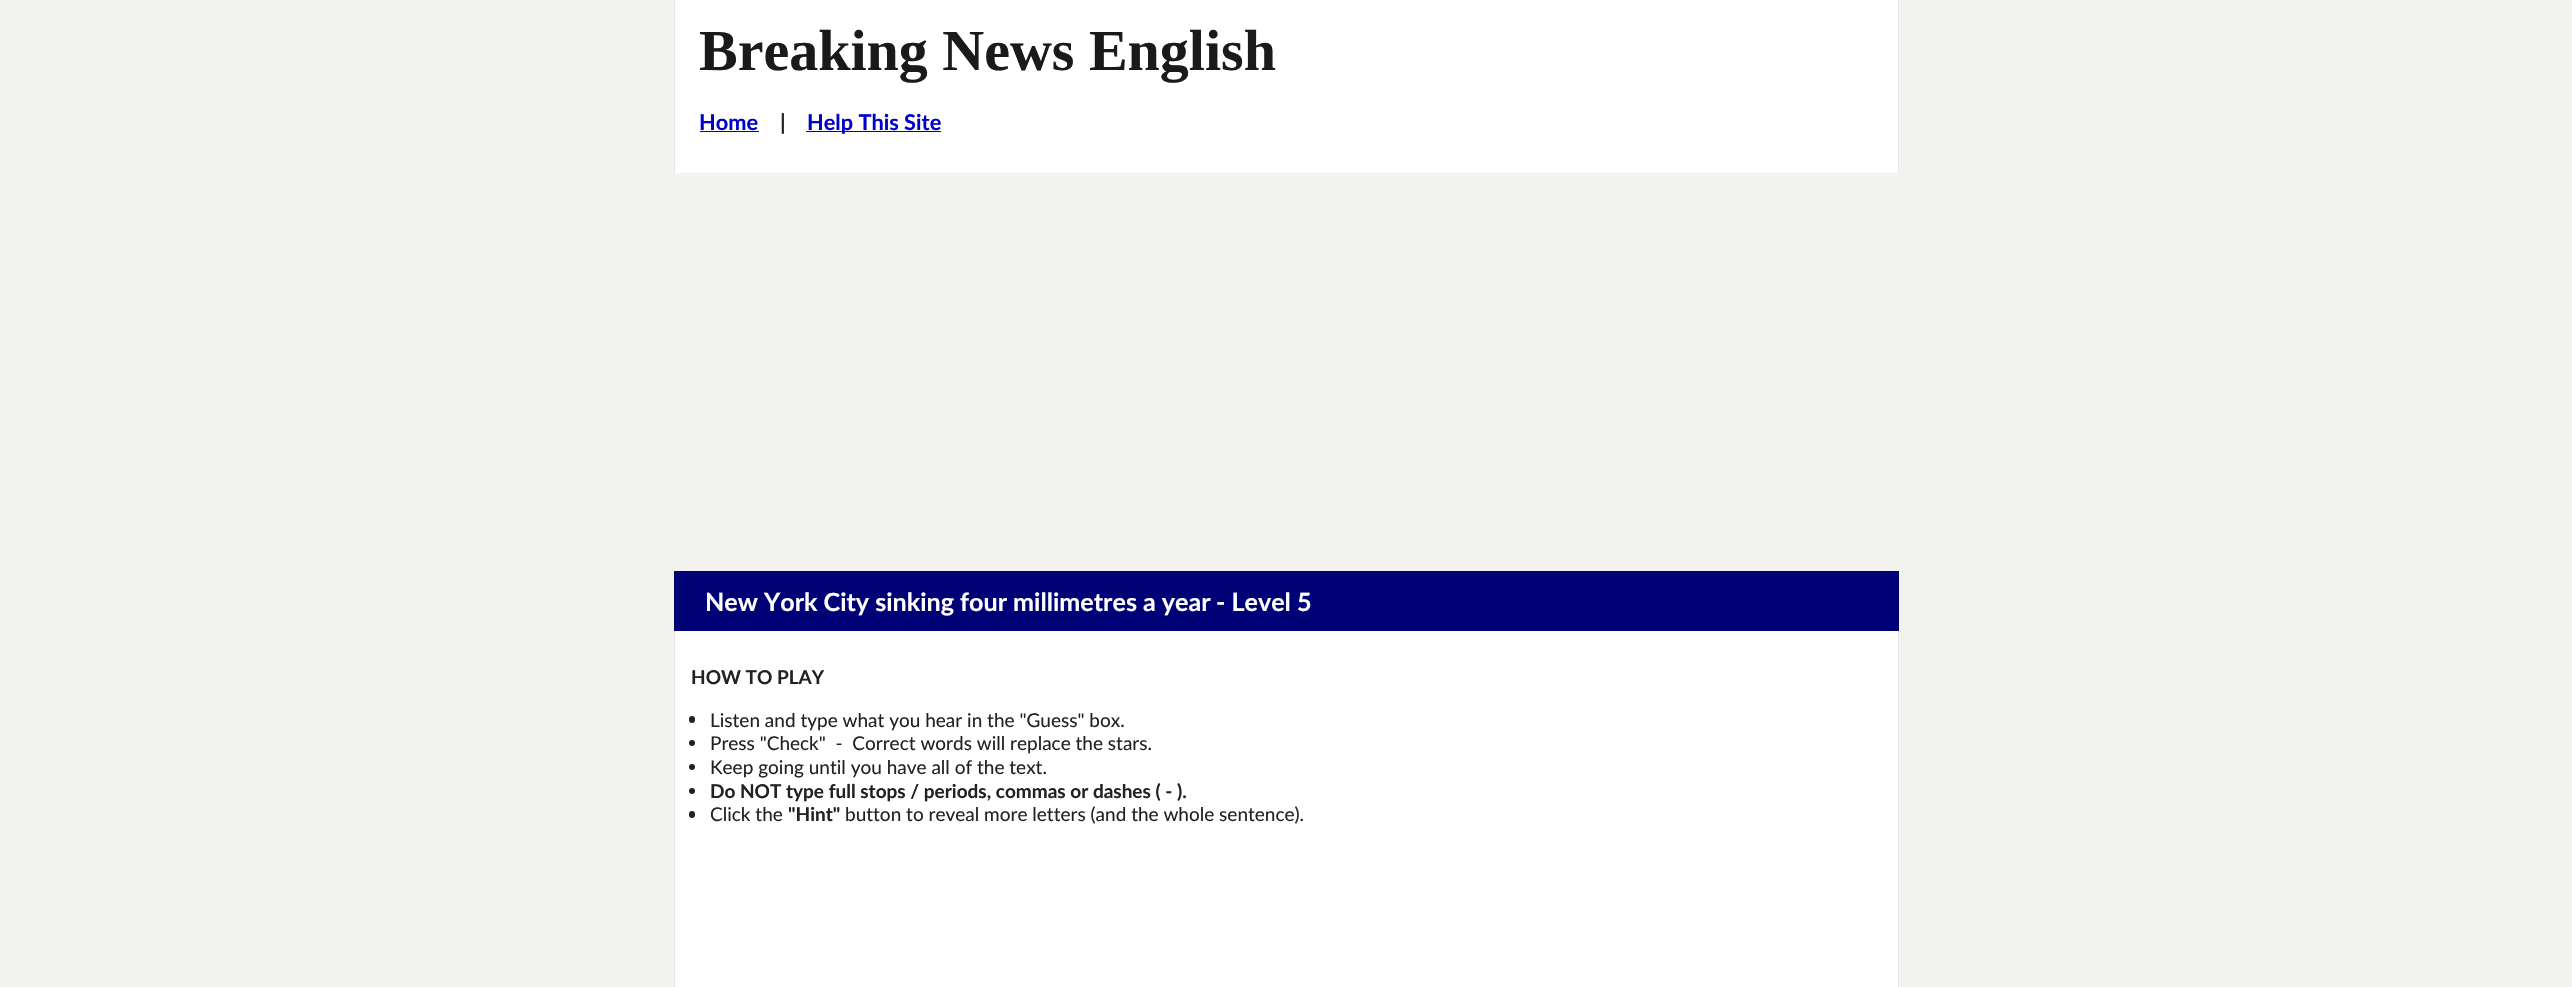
void draw(SkCanvas* canvas) {
	SkPaint paint;
	paint.setAntiAlias(true);
	canvas->clear(0xfff2f2ef);
	paint.setColor(0xffffffff);
	canvas->drawRect(SkRect::MakeXYWH(675, 0, 1223, 173), paint);
	paint.setColor(0xffe6e6e6);
	canvas->drawRect(SkRect::MakeXYWH(1898, 0, 1, 173), paint);
	canvas->drawRect(SkRect::MakeXYWH(674, 0, 1, 173), paint);
	SkFont f1(fontMgr->matchFamilyStyle("Liberation Serif", SkFontStyle::Bold()), 58);
	f1.setSubpixel(true);
	paint.setColor(0xff1a1a1a);
	canvas->drawString("Breaking News English", 699, 70, f1, paint);
	SkFont f2(fontMgr->matchFamilyStyle("Lato", SkFontStyle::Bold()), 21.75);
	f2.setSubpixel(true);
	paint.setColor(0xff0000cc);
	canvas->drawString("Home", 699, 130, f2, paint);
	canvas->drawRect(SkRect::MakeXYWH(700, 131, 59, 1), paint);
	paint.setColor(0xff222222);
	canvas->drawString("|", 780, 130, f2, paint);
	paint.setColor(0xff0000cc);
	canvas->drawRect(SkRect::MakeXYWH(806, 131, 135, 1), paint);
	canvas->drawString("Help This Site", 807, 130, f2, paint);
	paint.setColor(0xff000077);
	canvas->drawRect(SkRect::MakeXYWH(675, 571, 1223, 60), paint);
	paint.setColor(0xff00006b);
	canvas->drawRect(SkRect::MakeXYWH(1898, 571, 1, 60), paint);
	canvas->drawRect(SkRect::MakeXYWH(674, 571, 1, 60), paint);
	SkFont f3(fontMgr->matchFamilyStyle("Lato", SkFontStyle::Bold()), 25.1);
	f3.setSubpixel(true);
	paint.setColor(0xffffffff);
	canvas->drawString("New York City sinking four millimetres a year", 705, 611, f3, paint);
	canvas->drawString("- Level 5", 1216, 611, f3, paint);
	canvas->drawRect(SkRect::MakeXYWH(675, 631, 1223, 356), paint);
	paint.setColor(0xffe6e6e6);
	canvas->drawRect(SkRect::MakeXYWH(1898, 631, 1, 356), paint);
	canvas->drawRect(SkRect::MakeXYWH(674, 631, 1, 356), paint);
	SkFont f4(fontMgr->matchFamilyStyle("Lato", SkFontStyle::Bold()), 19);
	f4.setSubpixel(true);
	paint.setColor(0xff222222);
	canvas->drawString("HOW TO PLAY", 691, 684, f4, paint);
	canvas->drawRoundRect(SkRect::MakeXYWH(689, 716, 6, 7), 3, 3, paint);
	SkFont f5(fontMgr->matchFamilyStyle("Lato", SkFontStyle::Normal()), 19);
	f5.setSubpixel(true);
	canvas->drawString("Listen and type what you hear in the \"Guess\" box.", 710, 727, f5, paint);
	canvas->drawCircle(692, 743, 3, paint);
	canvas->drawString("Press \"Check\"  -  Correct words will replace the stars.", 710, 750, f5, paint);
	canvas->drawCircle(692, 767, 3, paint);
	canvas->drawString("Keep going until you have all of the text.", 710, 774, f5, paint);
	canvas->drawCircle(692, 791, 3, paint);
	canvas->drawString("Do NOT type full stops / periods, commas or dashes ( - ).", 710, 798, f4, paint);
	canvas->drawRoundRect(SkRect::MakeXYWH(689, 811, 6, 7), 3, 3, paint);
	canvas->drawString("Click the", 710, 821, f5, paint);
	canvas->drawString("\"Hint\"", 788, 821, f4, paint);
	canvas->drawString("button to reveal more letters (and the whole sentence).", 845, 821, f5, paint);
}
